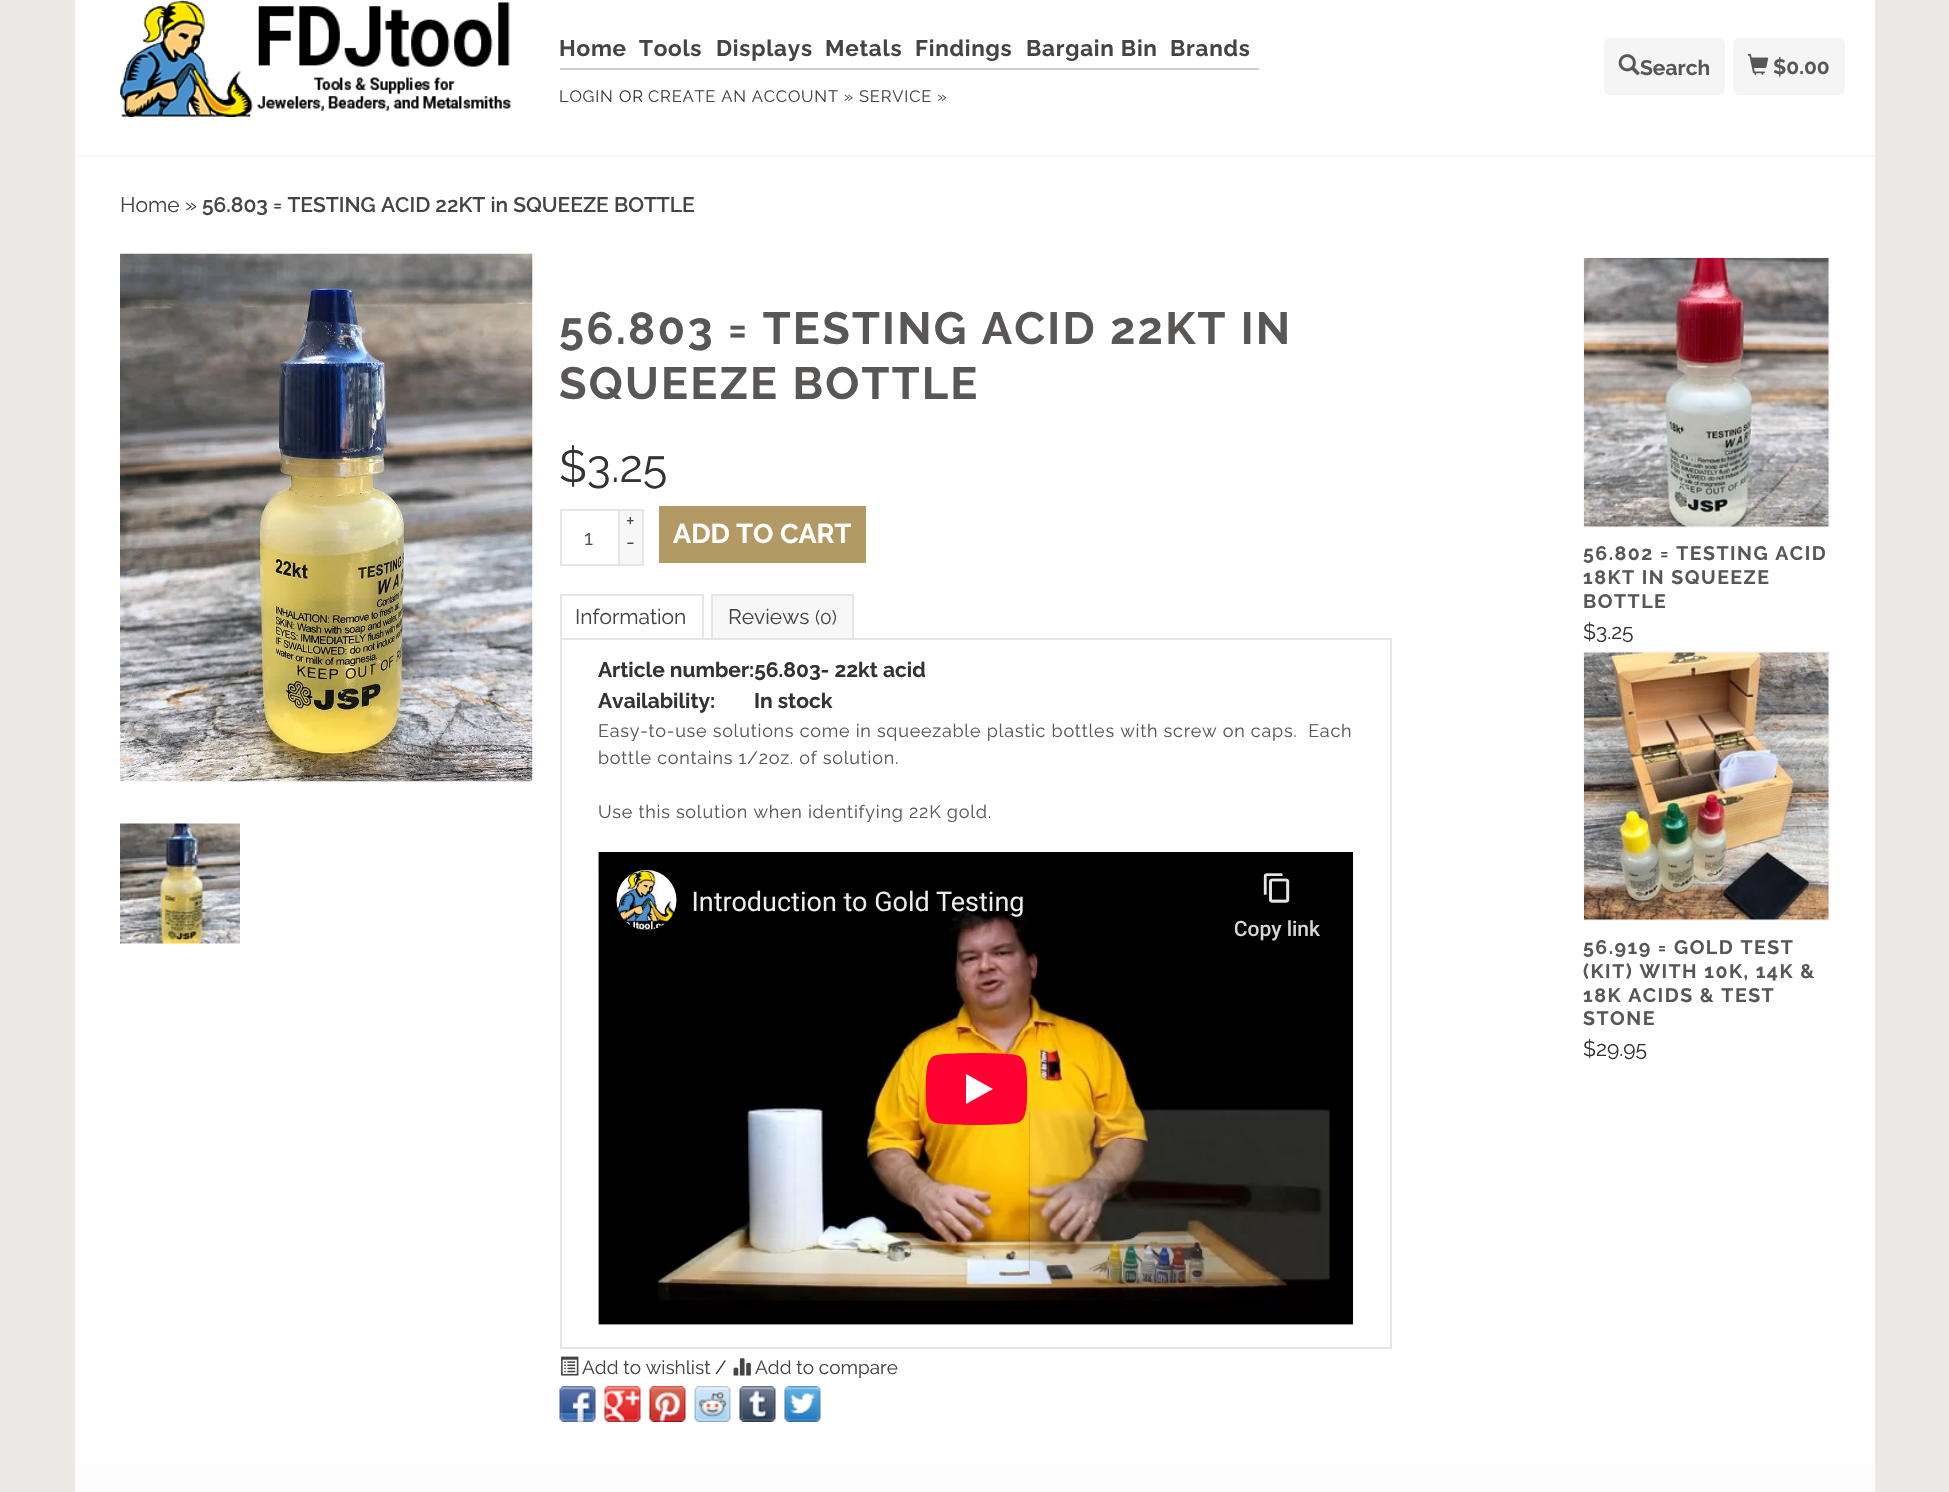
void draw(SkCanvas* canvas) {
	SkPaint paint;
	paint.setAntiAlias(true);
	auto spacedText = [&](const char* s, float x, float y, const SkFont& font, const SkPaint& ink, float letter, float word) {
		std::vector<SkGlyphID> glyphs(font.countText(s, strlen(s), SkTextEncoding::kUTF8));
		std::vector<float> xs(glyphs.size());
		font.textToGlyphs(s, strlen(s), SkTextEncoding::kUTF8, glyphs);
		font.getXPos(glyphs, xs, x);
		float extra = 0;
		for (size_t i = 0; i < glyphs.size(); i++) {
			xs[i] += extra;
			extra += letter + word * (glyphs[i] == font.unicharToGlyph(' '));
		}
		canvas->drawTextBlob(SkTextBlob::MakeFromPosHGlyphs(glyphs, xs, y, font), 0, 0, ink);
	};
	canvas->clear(0xffeae9e5);
	paint.setColor(0xffffffff);
	canvas->drawRect(SkRect::MakeXYWH(75, 0, 1800, 155), paint);
	paint.setColor(0xfff7f7f7);
	canvas->drawRect(SkRect::MakeXYWH(75, 155, 1800, 2), paint);
	canvas->drawImageRect(SkImages::DeferredFromEncodedData(SkData::MakeFromFileName("img1.png")), SkRect::MakeXYWH(120, 0, 391, 117), SkSamplingOptions());
	paint.setColor(0xffcccccc);
	canvas->drawRect(SkRect::MakeXYWH(560, 68, 699, 2), paint);
	SkFont f1(fontMgr->matchFamilyStyle("Raleway", SkFontStyle::Bold()), 22.5);
	f1.setSubpixel(true);
	paint.setColor(0xff444444);
	spacedText("Home", 559, 56, f1, paint, 0.75, 0);
	spacedText("Tools", 639, 56, f1, paint, 0.75, 0);
	spacedText("Displays", 716, 56, f1, paint, 0.75, 0);
	spacedText("Metals", 825, 56, f1, paint, 0.75, 0);
	spacedText("Findings", 915, 56, f1, paint, 0.75, 0);
	spacedText("Bargain Bin", 1026, 56, f1, paint, 0.75, 0);
	spacedText("Brands", 1170, 56, f1, paint, 0.75, 0);
	SkFont f2(fontMgr->matchFamilyStyle("Raleway", SkFontStyle::Normal()), 16.5);
	f2.setSubpixel(true);
	spacedText("LOGIN", 559, 102, f2, paint, 0.8, 0);
	paint.setColor(0xff333333);
	spacedText("OR", 619, 102, f2, paint, 0.8, 0);
	paint.setColor(0xff444444);
	spacedText("CREATE AN ACCOUNT » SERVICE »", 648, 102, f2, paint, 0.8, 0);
	paint.setColor(0xfff5f5f5);
	canvas->drawRoundRect(SkRect::MakeXYWH(1604, 38, 121, 57), 6, 6, paint);
	canvas->drawImageRect(SkImages::DeferredFromEncodedData(SkData::MakeFromFileName("img2.png")), SkRect::MakeXYWH(1618, 54, 22, 22), SkSamplingOptions());
	SkFont f3(fontMgr->matchFamilyStyle("Raleway", SkFontStyle::Bold()), 21);
	f3.setSubpixel(true);
	paint.setColor(0xff595656);
	canvas->drawString("Search", 1640, 75, f3, paint);
	paint.setColor(0xfff5f5f5);
	canvas->drawRoundRect(SkRect::MakeXYWH(1733, 38, 112, 57), 6, 6, paint);
	canvas->drawImageRect(SkImages::DeferredFromEncodedData(SkData::MakeFromFileName("img3.png")), SkRect::MakeXYWH(1747, 54, 22, 21), SkSamplingOptions());
	paint.setColor(0xff595656);
	canvas->drawString("$0.00", 1773, 74, f3, paint);
	paint.setColor(0xffffffff);
	canvas->drawRect(SkRect::MakeXYWH(75, 157, 1800, 1307), paint);
	SkFont f4(fontMgr->matchFamilyStyle("Raleway", SkFontStyle::Normal()), 21);
	f4.setSubpixel(true);
	paint.setColor(0xff444444);
	canvas->drawString("Home", 120, 212, f4, paint);
	paint.setColor(0xff333333);
	canvas->drawString("»", 185, 212, f4, paint);
	SkFont f5(fontMgr->matchFamilyStyle("Raleway", SkFontStyle(600, SkFontStyle::kNormal_Width, SkFontStyle::kUpright_Slant)), 21);
	f5.setSubpixel(true);
	paint.setColor(0xff444444);
	canvas->drawString("56.803 = TESTING ACID 22KT in SQUEEZE BOTTLE", 202, 212, f5, paint);
	canvas->drawImageRect(SkImages::DeferredFromEncodedData(SkData::MakeFromFileName("img4.png")), SkRect::MakeXYWH(120, 253, 413, 529), SkSamplingOptions());
	canvas->drawImageRect(SkImages::DeferredFromEncodedData(SkData::MakeFromFileName("img5.png")), SkRect::MakeXYWH(120, 823, 120, 121), SkSamplingOptions());
	SkFont f6(fontMgr->matchFamilyStyle("Raleway", SkFontStyle::Bold()), 45);
	f6.setSubpixel(true);
	paint.setColor(0xff595656);
	spacedText("56.803 = TESTING ACID 22KT IN", 559, 344, f6, paint, 2.25, 0);
	spacedText("SQUEEZE BOTTLE", 559, 399, f6, paint, 2.25, 0);
	SkFont f7(fontMgr->matchFamilyStyle("Raleway", SkFontStyle::Normal()), 45);
	f7.setSubpixel(true);
	paint.setColor(0xff333333);
	canvas->drawString("$3.25", 559, 482, f7, paint);
	paint.setStroke(true);
	paint.setStrokeWidth(2);
	paint.setColor(0xffe5e5e5);
	canvas->drawRect(SkRect::MakeXYWH(561, 510, 58, 55), paint);
	paint.setStroke(false);
	paint.setColor(0xff515050);
	canvas->drawString("1", 584, 545, f4, paint);
	paint.setColor(0xfff7f7f7);
	canvas->drawRect(SkRect::MakeXYWH(620, 511, 22, 53), paint);
	paint.setColor(0xffe5e5e5);
	canvas->drawRect(SkRect::MakeXYWH(620, 509, 24, 2), paint);
	canvas->drawRect(SkRect::MakeXYWH(642, 509, 2, 57), paint);
	canvas->drawRect(SkRect::MakeXYWH(620, 564, 24, 2), paint);
	paint.setColor(0xff444444);
	canvas->drawString("+", 626, 528, f4, paint);
	canvas->drawString("-", 626, 549, f4, paint);
	paint.setColor(0xffb39964);
	canvas->drawRect(SkRect::MakeXYWH(659, 506, 207, 57), paint);
	SkFont f8(fontMgr->matchFamilyStyle("Raleway", SkFontStyle::Bold()), 27);
	f8.setSubpixel(true);
	paint.setColor(0xffffffff);
	canvas->drawString("ADD TO CART", 673, 543, f8, paint);
	paint.setColor(0xffe5e5e5);
	canvas->drawRect(SkRect::MakeXYWH(560, 594, 144, 2), paint);
	canvas->drawRect(SkRect::MakeXYWH(702, 594, 2, 45), paint);
	canvas->drawRect(SkRect::MakeXYWH(560, 594, 2, 45), paint);
	paint.setColor(0xff444444);
	canvas->drawString("Information", 575, 624, f4, paint);
	paint.setColor(0xfff7f7f7);
	canvas->drawRect(SkRect::MakeXYWH(713, 596, 139, 42), paint);
	paint.setColor(0xffe5e5e5);
	canvas->drawRect(SkRect::MakeXYWH(711, 594, 143, 2), paint);
	canvas->drawRect(SkRect::MakeXYWH(852, 594, 2, 45), paint);
	canvas->drawRect(SkRect::MakeXYWH(711, 594, 2, 45), paint);
	paint.setColor(0xff444444);
	canvas->drawString("Reviews", 728, 624, f4, paint);
	SkFont f9(fontMgr->matchFamilyStyle("Raleway", SkFontStyle::Normal()), 19);
	f9.setSubpixel(true);
	canvas->drawString("(0)", 815, 624, f9, paint);
	paint.setStroke(true);
	paint.setColor(0xffe5e5e5);
	canvas->drawRect(SkRect::MakeXYWH(561, 639, 830, 709), paint);
	paint.setStroke(false);
	paint.setColor(0xff333333);
	canvas->drawString("Article number:56.803- 22kt acid", 598, 677, f3, paint);
	canvas->drawString("Availability:", 598, 708, f3, paint);
	canvas->drawString("In stock", 754, 708, f3, paint);
	SkFont f10(fontMgr->matchFamilyStyle("Raleway", SkFontStyle::Normal()), 18);
	f10.setSubpixel(true);
	paint.setColor(0xff595656);
	spacedText("Easy-to-use solutions come in squeezable plastic bottles with screw on caps.  Each", 598, 737, f10, paint, 0.75, 0);
	spacedText("bottle contains 1/2oz. of solution.", 598, 764, f10, paint, 0.75, 0);
	spacedText("Use this solution when identifying 22K gold.", 598, 818, f10, paint, 0.75, 0);
	canvas->drawImageRect(SkImages::DeferredFromEncodedData(SkData::MakeFromFileName("img6.png")), SkRect::MakeXYWH(598, 852, 755, 473), SkSamplingOptions());
	canvas->drawImageRect(SkImages::DeferredFromEncodedData(SkData::MakeFromFileName("img7.png")), SkRect::MakeXYWH(561, 1356, 18, 20), SkSamplingOptions());
	paint.setColor(0xff444444);
	canvas->drawString("Add to wishlist", 582, 1374, f9, paint);
	paint.setColor(0xff333333);
	canvas->drawString("/", 715, 1374, f9, paint);
	canvas->drawImageRect(SkImages::DeferredFromEncodedData(SkData::MakeFromFileName("img8.png")), SkRect::MakeXYWH(733, 1358, 18, 18), SkSamplingOptions());
	paint.setColor(0xff444444);
	canvas->drawString("Add to compare", 755, 1374, f9, paint);
	canvas->drawImageRect(SkImages::DeferredFromEncodedData(SkData::MakeFromFileName("img9.png")), SkRect::MakeXYWH(559, 1386, 37, 36), SkSamplingOptions());
	canvas->drawImageRect(SkImages::DeferredFromEncodedData(SkData::MakeFromFileName("img10.png")), SkRect::MakeXYWH(604, 1386, 37, 36), SkSamplingOptions());
	canvas->drawImageRect(SkImages::DeferredFromEncodedData(SkData::MakeFromFileName("img11.png")), SkRect::MakeXYWH(649, 1386, 37, 36), SkSamplingOptions());
	canvas->drawImageRect(SkImages::DeferredFromEncodedData(SkData::MakeFromFileName("img12.png")), SkRect::MakeXYWH(694, 1386, 37, 36), SkSamplingOptions());
	canvas->drawImageRect(SkImages::DeferredFromEncodedData(SkData::MakeFromFileName("img13.png")), SkRect::MakeXYWH(739, 1386, 37, 36), SkSamplingOptions());
	canvas->drawImageRect(SkImages::DeferredFromEncodedData(SkData::MakeFromFileName("img14.png")), SkRect::MakeXYWH(784, 1386, 37, 36), SkSamplingOptions());
	paint.setStroke(true);
	paint.setColor(0xfff7f7f7);
	canvas->drawRect(SkRect::MakeXYWH(1584, 258, 245, 269), paint);
	canvas->drawImageRect(SkImages::DeferredFromEncodedData(SkData::MakeFromFileName("img15.png")), SkRect::MakeXYWH(1584, 258, 245, 269), SkSamplingOptions());
	SkFont f11(fontMgr->matchFamilyStyle("Raleway", SkFontStyle::Bold()), 19.5);
	f11.setSubpixel(true);
	paint.setStroke(false);
	paint.setColor(0xff595656);
	spacedText("56.802 = TESTING ACID", 1583, 560, f11, paint, 1.5, 0);
	spacedText("18KT IN SQUEEZE", 1583, 584, f11, paint, 1.5, 0);
	spacedText("BOTTLE", 1583, 608, f11, paint, 1.5, 0);
	paint.setColor(0xff333333);
	canvas->drawString("$3.25", 1583, 639, f4, paint);
	paint.setStroke(true);
	paint.setColor(0xfff7f7f7);
	canvas->drawRect(SkRect::MakeXYWH(1584, 652, 245, 268), paint);
	canvas->drawImageRect(SkImages::DeferredFromEncodedData(SkData::MakeFromFileName("img16.png")), SkRect::MakeXYWH(1584, 652, 245, 268), SkSamplingOptions());
	paint.setStroke(false);
	paint.setColor(0xff595656);
	spacedText("56.919 = GOLD TEST", 1583, 954, f11, paint, 1.5, 0);
	spacedText("(KIT) WITH 10K, 14K &", 1583, 978, f11, paint, 1.5, 0);
	spacedText("18K ACIDS & TEST", 1583, 1002, f11, paint, 1.5, 0);
	spacedText("STONE", 1583, 1025, f11, paint, 1.5, 0);
	paint.setColor(0xff333333);
	canvas->drawString("$29.95", 1583, 1056, f4, paint);
	paint.setColor(0xfffcfcfc);
	canvas->drawRect(SkRect::MakeXYWH(75, 1464, 1800, 28), paint);
}
